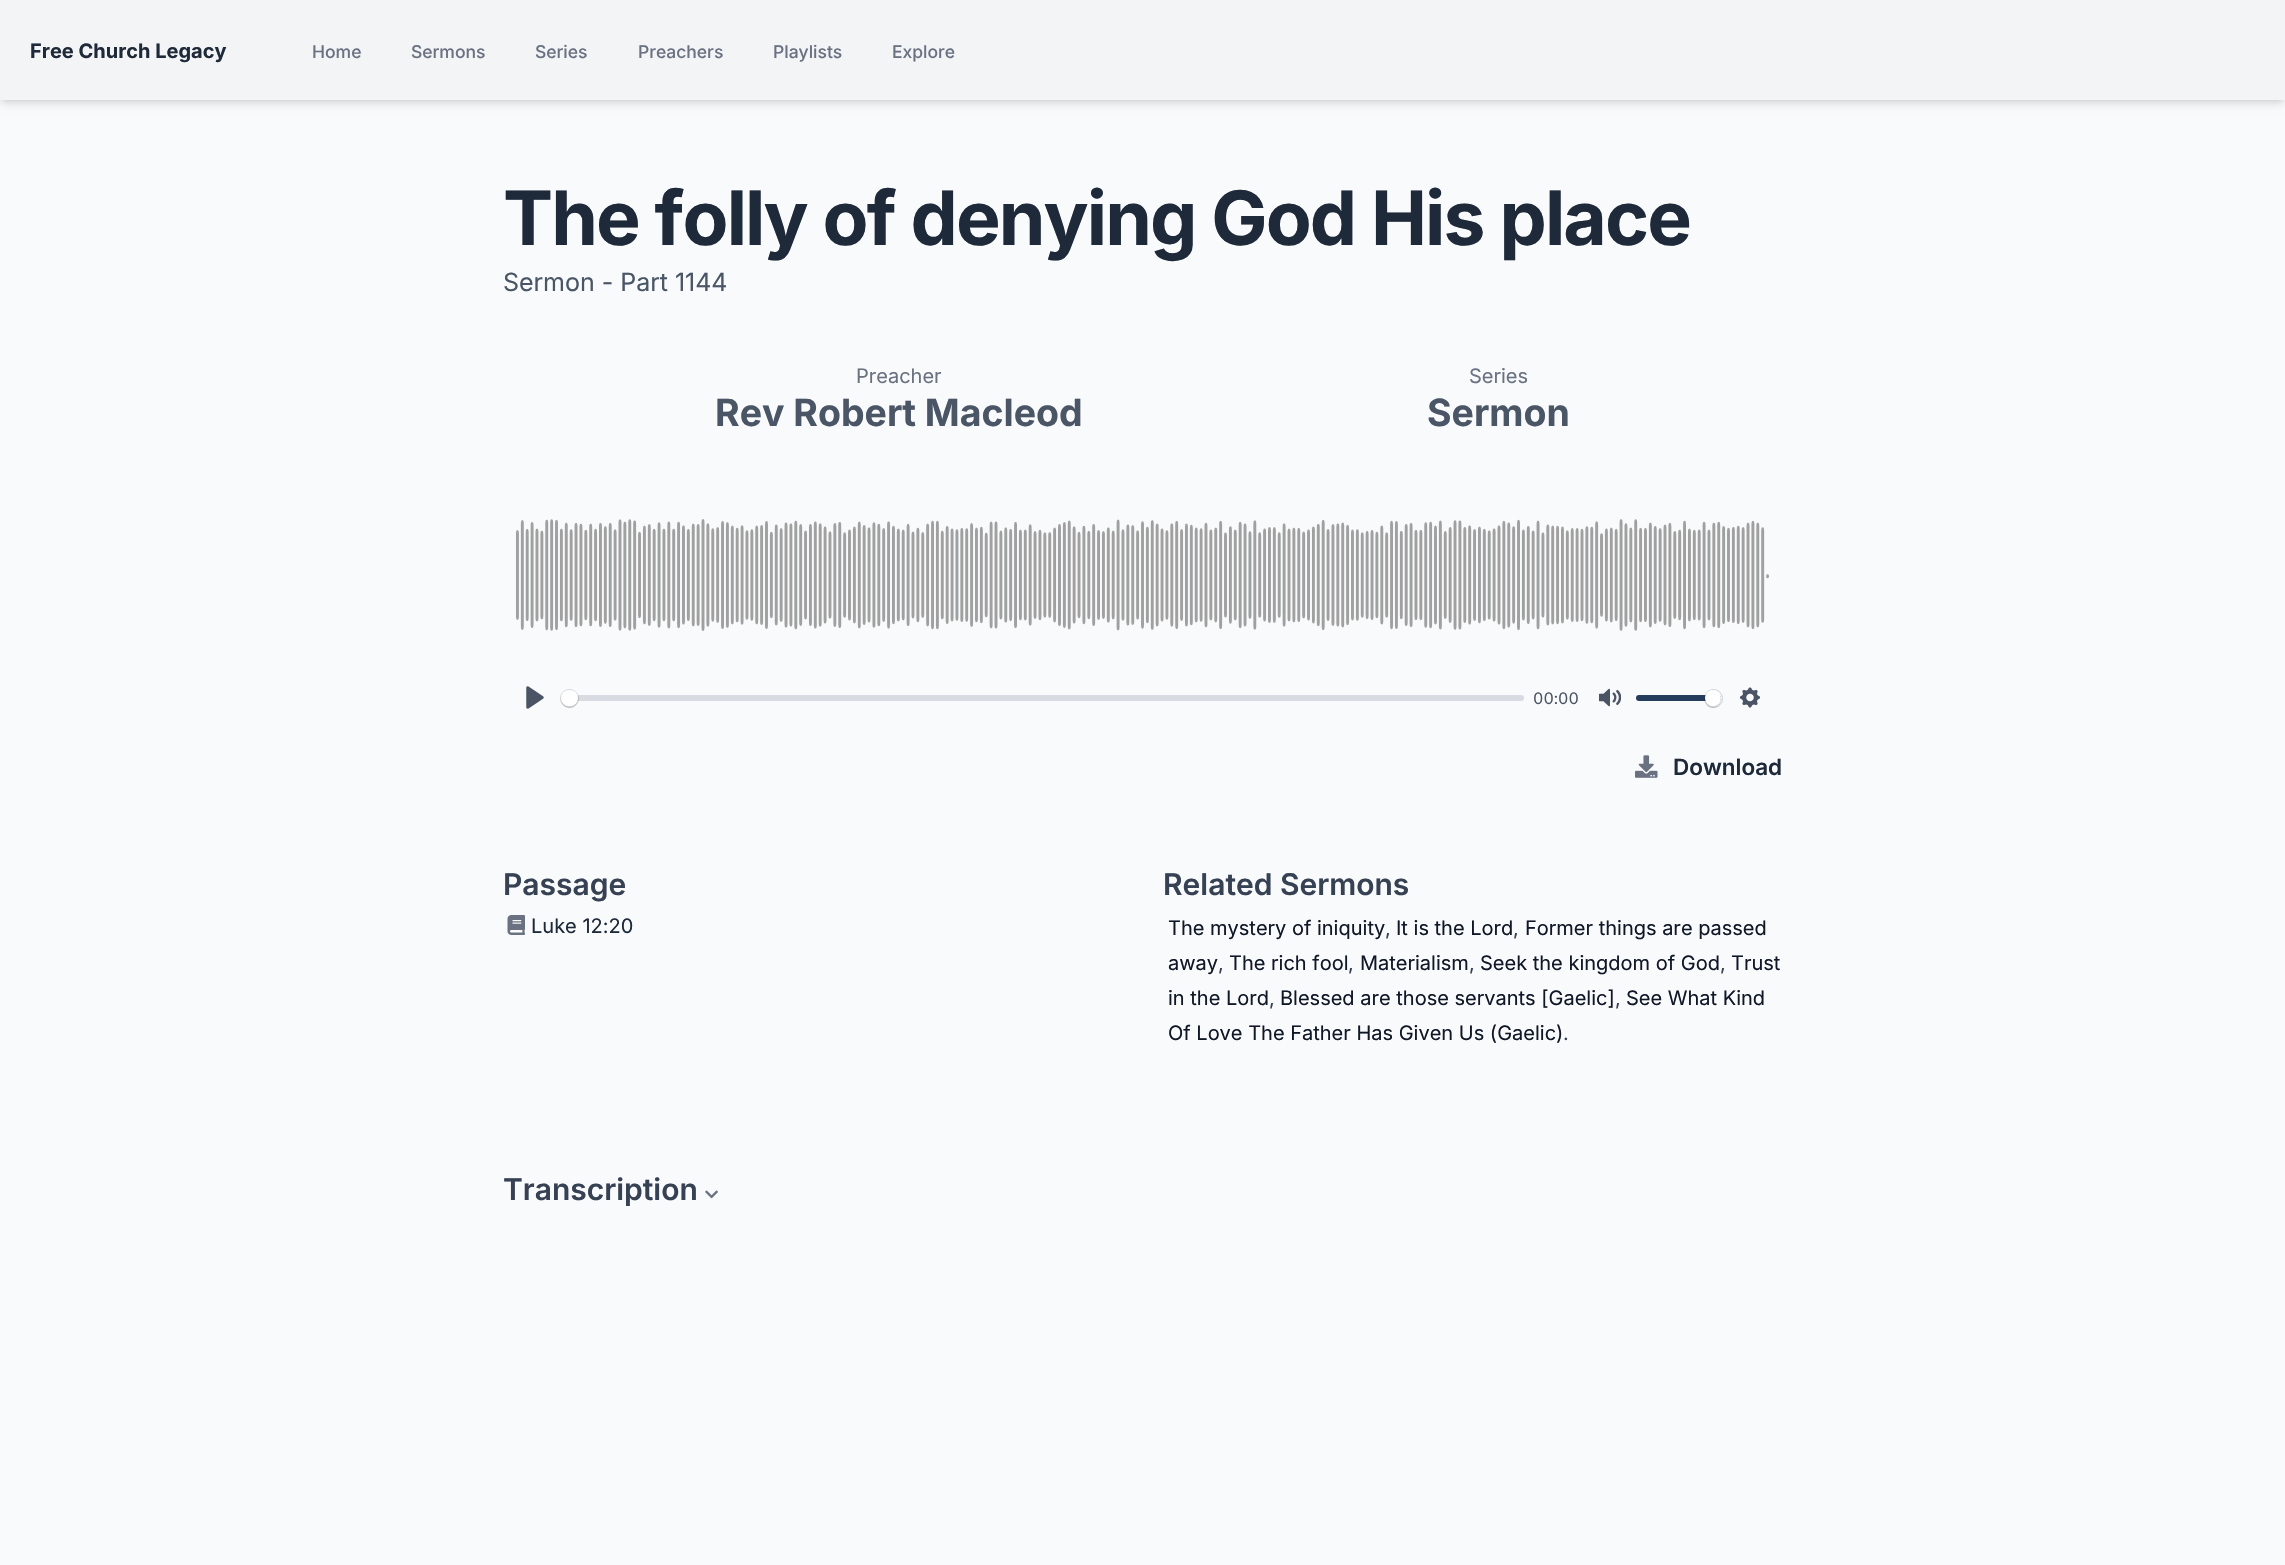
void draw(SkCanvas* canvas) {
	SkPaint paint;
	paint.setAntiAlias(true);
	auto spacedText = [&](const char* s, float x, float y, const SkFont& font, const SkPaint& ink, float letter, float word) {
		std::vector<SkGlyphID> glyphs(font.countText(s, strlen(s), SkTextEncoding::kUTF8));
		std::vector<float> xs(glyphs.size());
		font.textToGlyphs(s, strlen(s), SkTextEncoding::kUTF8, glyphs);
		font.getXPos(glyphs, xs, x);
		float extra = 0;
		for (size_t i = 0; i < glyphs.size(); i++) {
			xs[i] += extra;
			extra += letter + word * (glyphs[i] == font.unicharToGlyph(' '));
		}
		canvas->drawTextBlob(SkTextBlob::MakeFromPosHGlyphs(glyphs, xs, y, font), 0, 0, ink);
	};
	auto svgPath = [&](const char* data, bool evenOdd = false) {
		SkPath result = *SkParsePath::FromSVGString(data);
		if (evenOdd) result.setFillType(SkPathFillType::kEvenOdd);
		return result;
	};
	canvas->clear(0xfff9fafb);
	paint.setColor(0x1a000000);
	paint.setMaskFilter(SkMaskFilter::MakeBlur(kNormal_SkBlurStyle, 2.5));
	canvas->drawRect(SkRect::MakeXYWH(3, 5, 2280, 95), paint);
	paint.setMaskFilter(nullptr);
	paint.setMaskFilter(SkMaskFilter::MakeBlur(kNormal_SkBlurStyle, 4));
	canvas->drawRect(SkRect::MakeXYWH(1, 6, 2283, 98), paint);
	paint.setMaskFilter(nullptr);
	paint.setColor(0xfff3f4f6);
	canvas->drawRect(SkRect::MakeXYWH(0, 0, 2285, 100), paint);
	SkFont f1(fontMgr->matchFamilyStyle("Inter", SkFontStyle::Bold()), 20);
	f1.setSubpixel(true);
	paint.setColor(0xff1e2939);
	canvas->drawString("Free Church Legacy", 30, 58, f1, paint);
	SkFont f2(fontMgr->matchFamilyStyle("Inter", SkFontStyle(500, SkFontStyle::kNormal_Width, SkFontStyle::kUpright_Slant)), 17.5);
	f2.setSubpixel(true);
	paint.setColor(0xff6a7282);
	canvas->drawString("Home", 312, 58, f2, paint);
	canvas->drawString("Sermons", 411, 58, f2, paint);
	canvas->drawString("Series", 535, 58, f2, paint);
	canvas->drawString("Preachers", 638, 58, f2, paint);
	canvas->drawString("Playlists", 773, 58, f2, paint);
	canvas->drawString("Explore", 892, 58, f2, paint);
	SkFont f3(fontMgr->matchFamilyStyle("Inter", SkFontStyle::Bold()), 75);
	f3.setSubpixel(true);
	paint.setColor(0xff1e2939);
	spacedText("The folly of denying God His place", 503, 245, f3, paint, -1.9, 0);
	SkFont f4(fontMgr->matchFamilyStyle("Inter", SkFontStyle::Normal()), 25);
	f4.setSubpixel(true);
	paint.setColor(0xff4a5565);
	canvas->drawString("Sermon - Part 1144", 503, 291, f4, paint);
	SkFont f5(fontMgr->matchFamilyStyle("Inter", SkFontStyle::Normal()), 20);
	f5.setSubpixel(true);
	paint.setColor(0xff6a7282);
	canvas->drawString("Preacher", 856, 383, f5, paint);
	SkFont f6(fontMgr->matchFamilyStyle("Inter", SkFontStyle::Bold()), 37.5);
	f6.setSubpixel(true);
	paint.setColor(0xff4a5565);
	canvas->drawString("Rev Robert Macleod", 715, 426, f6, paint);
	paint.setColor(0xff6a7282);
	canvas->drawString("Series", 1469, 383, f5, paint);
	paint.setColor(0xff4a5565);
	canvas->drawString("Sermon", 1427, 426, f6, paint);
	canvas->drawImageRect(SkImages::DeferredFromEncodedData(SkData::MakeFromFileName("img1.png")), SkRect::MakeXYWH(516, 519, 1253, 112), SkSamplingOptions());
	canvas->drawImageRect(SkImages::DeferredFromEncodedData(SkData::MakeFromFileName("img2.png")), SkRect::MakeXYWH(526, 686, 18, 23), SkSamplingOptions());
	paint.setColor(0x99c1c8d1);
	canvas->drawRoundRect(SkRect::MakeXYWH(561, 695, 963, 6), 3, 3, paint);
	paint.setStroke(true);
	paint.setStrokeWidth(1);
	paint.setColor(0x3323282f);
	canvas->drawCircle(569.5, 698.5, 9, paint);
	paint.setStroke(false);
	paint.setColor(0x2623282f);
	paint.setMaskFilter(SkMaskFilter::MakeBlur(kNormal_SkBlurStyle, 0.5));
	canvas->drawRoundRect(SkRect::MakeXYWH(561, 691, 17, 17), 8.5, 8.5, paint);
	paint.setMaskFilter(nullptr);
	paint.setColor(0xfff9fafb);
	canvas->drawPath(svgPath("M565.5 685.5H573.5L569.5 689.5Z"), paint);
	paint.setColor(0xffffffff);
	canvas->drawRoundRect(SkRect::MakeXYWH(561, 690, 17, 16), 8, 8, paint);
	SkFont f7(fontMgr->matchFamilyStyle("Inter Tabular", SkFontStyle::Normal()), 16);
	f7.setSubpixel(true);
	paint.setColor(0xff4a5565);
	canvas->drawString("00:00", 1533, 704, f7, paint);
	canvas->drawImageRect(SkImages::DeferredFromEncodedData(SkData::MakeFromFileName("img3.png")), SkRect::MakeXYWH(1599, 688, 22, 19), SkSamplingOptions());
	paint.setColor(0xff243d5d);
	canvas->drawRoundRect(SkRect::MakeXYWH(1636, 695, 85, 6), 3, 3, paint);
	paint.setStroke(true);
	paint.setColor(0x3323282f);
	canvas->drawCircle(1713.5, 698.5, 9, paint);
	paint.setStroke(false);
	paint.setColor(0x2623282f);
	paint.setMaskFilter(SkMaskFilter::MakeBlur(kNormal_SkBlurStyle, 0.5));
	canvas->drawRoundRect(SkRect::MakeXYWH(1705, 691, 16, 17), 8, 8, paint);
	paint.setMaskFilter(nullptr);
	paint.setColor(0xffffffff);
	canvas->drawCircle(1713, 698, 8, paint);
	canvas->drawImageRect(SkImages::DeferredFromEncodedData(SkData::MakeFromFileName("img4.png")), SkRect::MakeXYWH(1740, 687, 20, 21), SkSamplingOptions());
	canvas->drawImageRect(SkImages::DeferredFromEncodedData(SkData::MakeFromFileName("img5.png")), SkRect::MakeXYWH(1635, 755, 23, 23), SkSamplingOptions());
	SkFont f8(fontMgr->matchFamilyStyle("Inter", SkFontStyle(600, SkFontStyle::kNormal_Width, SkFontStyle::kUpright_Slant)), 22.5);
	f8.setSubpixel(true);
	paint.setColor(0xff1e2939);
	canvas->drawString("Download", 1673, 775, f8, paint);
	SkFont f9(fontMgr->matchFamilyStyle("Inter", SkFontStyle(600, SkFontStyle::kNormal_Width, SkFontStyle::kUpright_Slant)), 30);
	f9.setSubpixel(true);
	paint.setColor(0xff364153);
	canvas->drawString("Passage", 503, 895, f9, paint);
	canvas->drawImageRect(SkImages::DeferredFromEncodedData(SkData::MakeFromFileName("img6.png")), SkRect::MakeXYWH(507, 915, 18, 20), SkSamplingOptions());
	paint.setColor(0xff1e2939);
	canvas->drawString("Luke 12:20", 531, 933, f5, paint);
	paint.setColor(0xff364153);
	canvas->drawString("Related Sermons", 1163, 895, f9, paint);
	paint.setColor(0xff101828);
	canvas->drawString("The mystery of iniquity", 1168, 935, f5, paint);
	paint.setColor(0xff364153);
	canvas->drawString(",", 1385, 935, f5, paint);
	paint.setColor(0xff101828);
	canvas->drawString("It is the Lord", 1396, 935, f5, paint);
	paint.setColor(0xff364153);
	canvas->drawString(",", 1513, 935, f5, paint);
	paint.setColor(0xff101828);
	canvas->drawString("Former things are passed", 1525, 935, f5, paint);
	canvas->drawString("away", 1168, 970, f5, paint);
	paint.setColor(0xff364153);
	canvas->drawString(",", 1218, 970, f5, paint);
	paint.setColor(0xff101828);
	canvas->drawString("The rich fool", 1229, 970, f5, paint);
	paint.setColor(0xff364153);
	canvas->drawString(",", 1348, 970, f5, paint);
	paint.setColor(0xff101828);
	canvas->drawString("Materialism", 1360, 970, f5, paint);
	paint.setColor(0xff364153);
	canvas->drawString(",", 1469, 970, f5, paint);
	paint.setColor(0xff101828);
	canvas->drawString("Seek the kingdom of God", 1480, 970, f5, paint);
	paint.setColor(0xff364153);
	canvas->drawString(",", 1720, 970, f5, paint);
	paint.setColor(0xff101828);
	canvas->drawString("Trust", 1731, 970, f5, paint);
	canvas->drawString("in the Lord", 1168, 1005, f5, paint);
	paint.setColor(0xff364153);
	canvas->drawString(",", 1269, 1005, f5, paint);
	paint.setColor(0xff101828);
	canvas->drawString("Blessed are those servants [Gaelic]", 1280, 1005, f5, paint);
	paint.setColor(0xff364153);
	canvas->drawString(",", 1615, 1005, f5, paint);
	paint.setColor(0xff101828);
	canvas->drawString("See What Kind", 1626, 1005, f5, paint);
	canvas->drawString("Of Love The Father Has Given Us (Gaelic)", 1168, 1040, f5, paint);
	paint.setColor(0xff364153);
	canvas->drawString(".", 1563, 1040, f5, paint);
	canvas->drawString("Transcription", 503, 1200, f9, paint);
	canvas->drawImageRect(SkImages::DeferredFromEncodedData(SkData::MakeFromFileName("img7.png")), SkRect::MakeXYWH(705, 1190, 13, 9), SkSamplingOptions());
}
